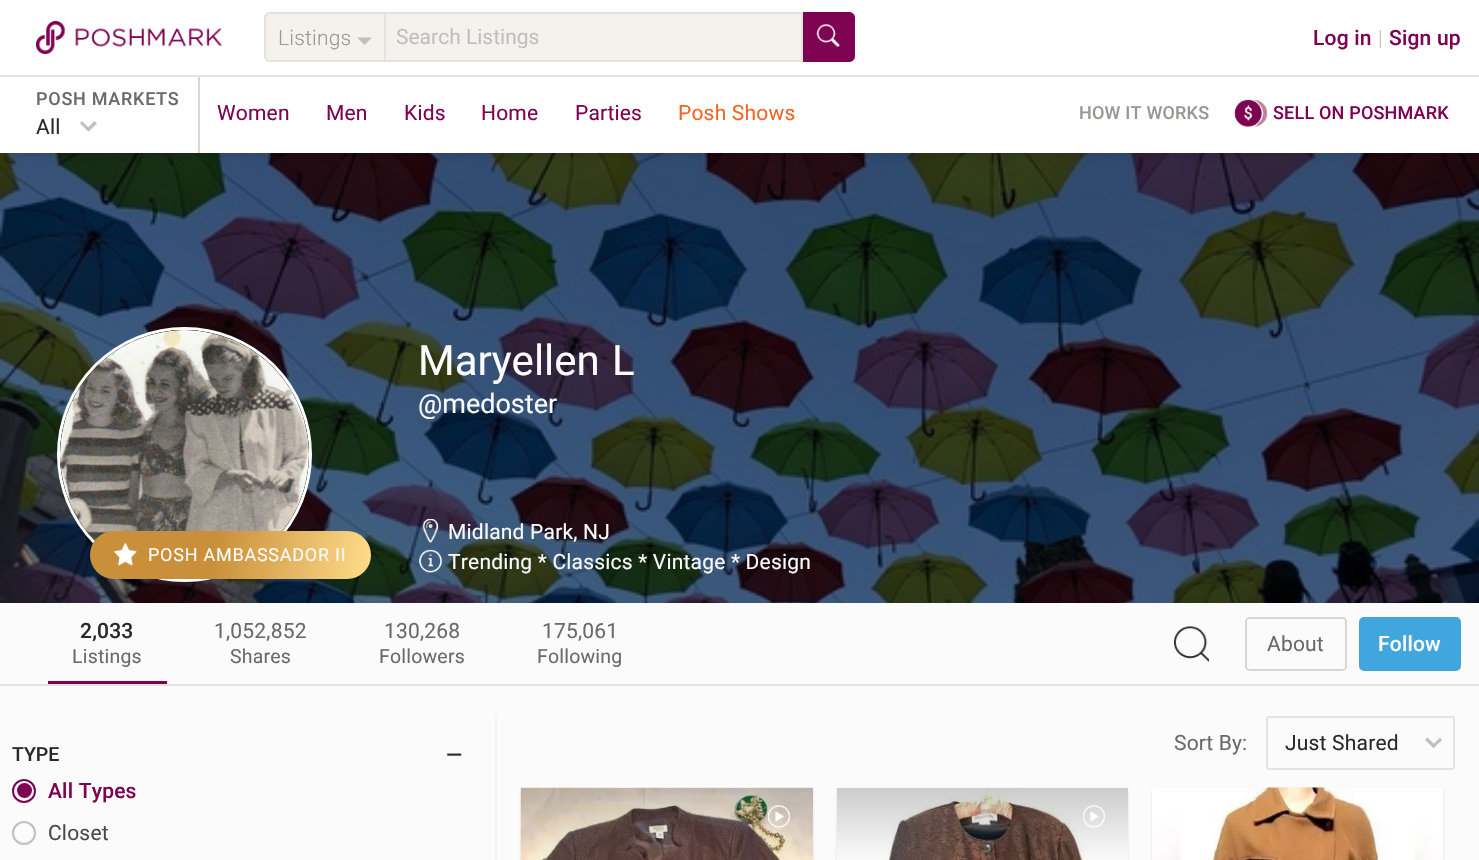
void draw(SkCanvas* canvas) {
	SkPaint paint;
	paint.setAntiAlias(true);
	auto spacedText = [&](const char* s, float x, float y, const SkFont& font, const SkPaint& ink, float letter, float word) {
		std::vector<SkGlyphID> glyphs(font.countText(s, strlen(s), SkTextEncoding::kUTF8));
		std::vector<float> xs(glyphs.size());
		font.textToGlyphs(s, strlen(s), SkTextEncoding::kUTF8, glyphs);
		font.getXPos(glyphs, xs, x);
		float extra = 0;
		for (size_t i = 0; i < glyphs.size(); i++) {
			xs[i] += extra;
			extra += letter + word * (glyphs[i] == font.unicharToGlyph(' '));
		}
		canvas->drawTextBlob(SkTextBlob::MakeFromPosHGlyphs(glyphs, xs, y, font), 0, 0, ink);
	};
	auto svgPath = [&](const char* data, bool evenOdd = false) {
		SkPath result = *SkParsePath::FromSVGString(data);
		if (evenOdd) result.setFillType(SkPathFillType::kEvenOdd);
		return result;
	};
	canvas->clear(0xfffcfbfb);
	canvas->drawImageRect(SkImages::DeferredFromEncodedData(SkData::MakeFromFileName("img4.png")), SkRect::MakeXYWH(0, 153, 1479, 450), SkSamplingOptions());
	paint.setColor(0x1a000000);
	paint.setMaskFilter(SkMaskFilter::MakeBlur(kNormal_SkBlurStyle, 4.5));
	canvas->drawRect(SkRect::MakeXYWH(-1, 75, 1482, 81), paint);
	paint.setMaskFilter(nullptr);
	paint.setColor(0xffffffff);
	canvas->drawRect(SkRect::MakeXYWH(0, 0, 1479, 75), paint);
	canvas->drawRect(SkRect::MakeXYWH(0, 77, 1479, 76), paint);
	paint.setColor(0xffd9d5d2);
	canvas->drawRect(SkRect::MakeXYWH(198, 75, 2, 78), paint);
	paint.setColor(0xffe6e2df);
	canvas->drawRect(SkRect::MakeXYWH(0, 75, 1479, 2), paint);
	canvas->drawImageRect(SkImages::DeferredFromEncodedData(SkData::MakeFromFileName("img1.png")), SkRect::MakeXYWH(36, 21, 186, 33), SkSamplingOptions());
	paint.setColor(0xfff5f2ee);
	canvas->drawPath(svgPath("M270 12H384V62H270C266.5 62 264 59.5 264 56V18C264 14.5 266.5 12 270 12Z"), paint);
	paint.setColor(0xffe6e2df);
	canvas->drawPath(svgPath("M270 12H384V62H270C267 62 264 59 264 56V18C264 15 267 12 270 12ZM270 14H384V60H270C268 60 266 58 266 56V18C266 16 268 14 270 14Z", true), paint);
	SkFont f1(fontMgr->matchFamilyStyle("Roboto", SkFontStyle(300, SkFontStyle::kNormal_Width, SkFontStyle::kUpright_Slant)), 21);
	f1.setSubpixel(true);
	paint.setColor(0xff9b9691);
	spacedText("Listings", 278, 45, f1, paint, 0.2, 0);
	paint.setColor(0xffc1bfbc);
	canvas->drawPath(svgPath("M357 37.5H372L364.5 45Z"), paint);
	paint.setColor(0xff7f0353);
	canvas->drawPath(svgPath("M800 12H849C852.5 12 855 14.5 855 18V56C855 59.5 852.5 62 849 62H800Z"), paint);
	paint.setColor(0xfff5f2ee);
	canvas->drawRect(SkRect::MakeXYWH(385, 13, 417, 48), paint);
	paint.setStroke(true);
	paint.setStrokeWidth(2);
	paint.setColor(0xffe6e2df);
	canvas->drawRect(SkRect::MakeXYWH(385, 13, 417, 48), paint);
	canvas->save();
	canvas->clipRect(SkRect::MakeXYWH(396, 24, 374, 24));
	SkFont f2(fontMgr->matchFamilyStyle("Roboto", SkFontStyle::Normal()), 21);
	f2.setSubpixel(true);
	paint.setStroke(false);
	paint.setColor(0xffc1bfbc);
	canvas->drawString("Search Listings", 396, 44, f2, paint);
	canvas->restore();
	canvas->drawImageRect(SkImages::DeferredFromEncodedData(SkData::MakeFromFileName("img2.png")), SkRect::MakeXYWH(816, 24, 24, 23), SkSamplingOptions());
	SkFont f3(fontMgr->matchFamilyStyle("Roboto", SkFontStyle(500, SkFontStyle::kNormal_Width, SkFontStyle::kUpright_Slant)), 21);
	f3.setSubpixel(true);
	paint.setColor(0xff7f0353);
	spacedText("Log in", 1313, 45, f3, paint, 0.2, 0);
	paint.setColor(0xffc1bfbc);
	spacedText("|", 1378, 45, f1, paint, 0.2, 0);
	paint.setColor(0xff7f0353);
	spacedText("Sign up", 1389, 45, f3, paint, 0.2, 0);
	SkFont f4(fontMgr->matchFamilyStyle("Roboto", SkFontStyle(500, SkFontStyle::kNormal_Width, SkFontStyle::kUpright_Slant)), 18);
	f4.setSubpixel(true);
	paint.setColor(0xff6a6a6a);
	spacedText("POSH MARKETS", 36, 105, f4, paint, 0.75, 0);
	paint.setColor(0xff2a2a2a);
	spacedText("All", 36, 134, f2, paint, 0.2, 0);
	paint.setColor(0xffc1bfbc);
	canvas->drawPath(svgPath("M94.5 121L97 123.5L88.5 131.5L86 129.5Z"), paint);
	canvas->drawPath(svgPath("M82 121L90.5 129.5L88.5 131.5L80 123.5Z"), paint);
	paint.setColor(0xff7f0353);
	spacedText("Women", 217, 120, f2, paint, 0.2, 0);
	spacedText("Men", 326, 120, f2, paint, 0.2, 0);
	spacedText("Kids", 404, 120, f2, paint, 0.2, 0);
	spacedText("Home", 481, 120, f2, paint, 0.2, 0);
	spacedText("Parties", 575, 120, f2, paint, 0.2, 0);
	paint.setColor(0xfff36522);
	spacedText("Posh Shows", 678, 120, f2, paint, 0.2, 0);
	paint.setColor(0xff9b9691);
	spacedText("HOW IT WORKS", 1079, 119, f4, paint, 0.2, 0);
	canvas->drawImageRect(SkImages::DeferredFromEncodedData(SkData::MakeFromFileName("img3.png")), SkRect::MakeXYWH(1234, 99, 34, 29), SkSamplingOptions());
	paint.setColor(0xff7f0353);
	spacedText("SELL ON POSHMARK", 1273, 119, f4, paint, 0.2, 0);
	paint.setStroke(true);
	paint.setStrokeWidth(3);
	paint.setColor(0xffffffff);
	canvas->drawCircle(184.5, 454.5, 126, paint);
	canvas->drawImageRect(SkImages::DeferredFromEncodedData(SkData::MakeFromFileName("img5.png")), SkRect::MakeXYWH(60, 330, 249, 211), SkSamplingOptions());
	paint.setStroke(false);
	{
		const SkColor colors[] = {0xffc98f3a, 0xffffdc8a};
		const float stops[] = {0.44, 1};
		const SkPoint ends[] = {{90, 531}, {370, 579}};
		paint.setShader(SkGradientShader::MakeLinear(ends, colors, stops, 2, SkTileMode::kClamp));
		paint.setAlpha(255);
	}
	canvas->drawRoundRect(SkRect::MakeXYWH(90, 531, 281, 48), 24, 24, paint);
	canvas->drawImageRect(SkImages::DeferredFromEncodedData(SkData::MakeFromFileName("img6.png")), SkRect::MakeXYWH(114, 543, 23, 23), SkSamplingOptions());
	SkFont f5(fontMgr->matchFamilyStyle("Roboto", SkFontStyle::Normal()), 18);
	f5.setSubpixel(true);
	paint.setShader(nullptr);
	paint.setColor(0xfffcfbfb);
	spacedText("POSH AMBASSADOR II", 148, 561, f5, paint, 0.75, 0);
	SkFont f6(fontMgr->matchFamilyStyle("Roboto", SkFontStyle::Normal()), 42);
	f6.setSubpixel(true);
	canvas->drawString("Maryellen", 418, 375, f6, paint);
	canvas->drawString("L", 612, 375, f6, paint);
	SkFont f7(fontMgr->matchFamilyStyle("Roboto", SkFontStyle::Normal()), 27);
	f7.setSubpixel(true);
	canvas->drawString("@medoster", 418, 413, f7, paint);
	canvas->drawImageRect(SkImages::DeferredFromEncodedData(SkData::MakeFromFileName("img7.png")), SkRect::MakeXYWH(422, 519, 17, 24), SkSamplingOptions());
	spacedText("Midland Park, NJ", 448, 539, f2, paint, 0.2, 0);
	canvas->drawImageRect(SkImages::DeferredFromEncodedData(SkData::MakeFromFileName("img8.png")), SkRect::MakeXYWH(419, 549, 24, 24), SkSamplingOptions());
	spacedText("Trending * Classics * Vintage * Design", 448, 569, f2, paint, 0.2, 0);
	paint.setColor(0xffe6e2df);
	canvas->drawRect(SkRect::MakeXYWH(0, 684, 1479, 2), paint);
	paint.setColor(0xff7f0353);
	canvas->drawRect(SkRect::MakeXYWH(48, 681, 119, 3), paint);
	paint.setColor(0xff2a2a2a);
	spacedText("2,033", 80, 638, f3, paint, 0.2, 0);
	SkFont f8(fontMgr->matchFamilyStyle("Roboto", SkFontStyle::Normal()), 19.5);
	f8.setSubpixel(true);
	paint.setColor(0xff6a6a6a);
	spacedText("Listings", 72, 663, f8, paint, 0.2, 0);
	spacedText("1,052,852", 214, 638, f2, paint, 0.2, 0);
	spacedText("Shares", 230, 663, f8, paint, 0.2, 0);
	spacedText("130,268", 384, 638, f2, paint, 0.2, 0);
	spacedText("Followers", 379, 663, f8, paint, 0.2, 0);
	spacedText("175,061", 542, 638, f2, paint, 0.2, 0);
	spacedText("Following", 537, 663, f8, paint, 0.2, 0);
	canvas->drawImageRect(SkImages::DeferredFromEncodedData(SkData::MakeFromFileName("img9.png")), SkRect::MakeXYWH(1174, 626, 35, 36), SkSamplingOptions());
	paint.setStroke(true);
	paint.setStrokeWidth(2);
	paint.setColor(0xffd9d5d2);
	canvas->drawRoundRect(SkRect::MakeXYWH(1246, 618, 100, 52), 4, 4, paint);
	paint.setStroke(false);
	paint.setColor(0xff6a6a6a);
	spacedText("About", 1267, 651, f2, paint, 0.2, 0);
	paint.setColor(0xff41a6de);
	canvas->drawRoundRect(SkRect::MakeXYWH(1360, 618, 100, 52), 4, 4, paint);
	paint.setStroke(true);
	canvas->drawRoundRect(SkRect::MakeXYWH(1360, 618, 100, 52), 4, 4, paint);
	paint.setStroke(false);
	paint.setColor(0xfffcfbfb);
	spacedText("Follow", 1378, 651, f3, paint, 0.2, 0);
	paint.setColor(0xff6a6a6a);
	spacedText("Sort By:", 1174, 750, f2, paint, 0.2, 0);
	paint.setStroke(true);
	paint.setColor(0xffe6e2df);
	canvas->drawRoundRect(SkRect::MakeXYWH(1267, 717, 187, 52), 2, 2, paint);
	paint.setStroke(false);
	paint.setColor(0xff2a2a2a);
	spacedText("Just Shared", 1285, 750, f2, paint, 0.2, 0);
	paint.setColor(0xffc1bfbc);
	canvas->drawPath(svgPath("M1440 737.5L1442 740L1433.5 748L1431.5 746Z"), paint);
	canvas->drawPath(svgPath("M1427.5 737.5L1436 746L1433.5 748L1425 740Z"), paint);
	paint.setColor(0x1a000000);
	paint.setMaskFilter(SkMaskFilter::MakeBlur(kNormal_SkBlurStyle, 1.5));
	canvas->drawRoundRect(SkRect::MakeXYWH(521, 789, 292, 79), 3, 3, paint);
	paint.setMaskFilter(nullptr);
	canvas->drawImageRect(SkImages::DeferredFromEncodedData(SkData::MakeFromFileName("img10.png")), SkRect::MakeXYWH(520, 787, 293, 73), SkSamplingOptions());
	canvas->drawImageRect(SkImages::DeferredFromEncodedData(SkData::MakeFromFileName("img11.png")), SkRect::MakeXYWH(768, 805, 22, 23), SkSamplingOptions());
	paint.setMaskFilter(SkMaskFilter::MakeBlur(kNormal_SkBlurStyle, 1.5));
	canvas->drawRoundRect(SkRect::MakeXYWH(837, 789, 291, 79), 3, 3, paint);
	paint.setMaskFilter(nullptr);
	canvas->drawImageRect(SkImages::DeferredFromEncodedData(SkData::MakeFromFileName("img12.png")), SkRect::MakeXYWH(837, 788, 291, 72), SkSamplingOptions());
	canvas->drawImageRect(SkImages::DeferredFromEncodedData(SkData::MakeFromFileName("img13.png")), SkRect::MakeXYWH(1083, 805, 22, 23), SkSamplingOptions());
	paint.setMaskFilter(SkMaskFilter::MakeBlur(kNormal_SkBlurStyle, 1.5));
	canvas->drawRoundRect(SkRect::MakeXYWH(1152, 789, 291, 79), 3, 3, paint);
	paint.setMaskFilter(nullptr);
	canvas->drawImageRect(SkImages::DeferredFromEncodedData(SkData::MakeFromFileName("img14.png")), SkRect::MakeXYWH(1152, 787, 291, 73), SkSamplingOptions());
	paint.setColor(0xfff5f2ee);
	canvas->drawRect(SkRect::MakeXYWH(495, 716, 2, 144), paint);
	SkFont f9(fontMgr->matchFamilyStyle("Roboto", SkFontStyle(500, SkFontStyle::kNormal_Width, SkFontStyle::kUpright_Slant)), 19.5);
	f9.setSubpixel(true);
	paint.setColor(0xff2a2a2a);
	canvas->drawString("TYPE", 12, 761, f9, paint);
	spacedText("—", 446, 762, f3, paint, 0.2, 0);
	paint.setStroke(true);
	paint.setColor(0xff7f0353);
	canvas->drawCircle(24, 791, 11, paint);
	paint.setStroke(false);
	canvas->drawCircle(24.5, 790.5, 7.5, paint);
	spacedText("All Types", 48, 798, f3, paint, 0.2, 0);
	paint.setStroke(true);
	paint.setColor(0xffc1bfbc);
	canvas->drawCircle(24, 833, 11, paint);
	paint.setStroke(false);
	paint.setColor(0xff4a4a4a);
	spacedText("Closet", 48, 840, f2, paint, 0.2, 0);
}
